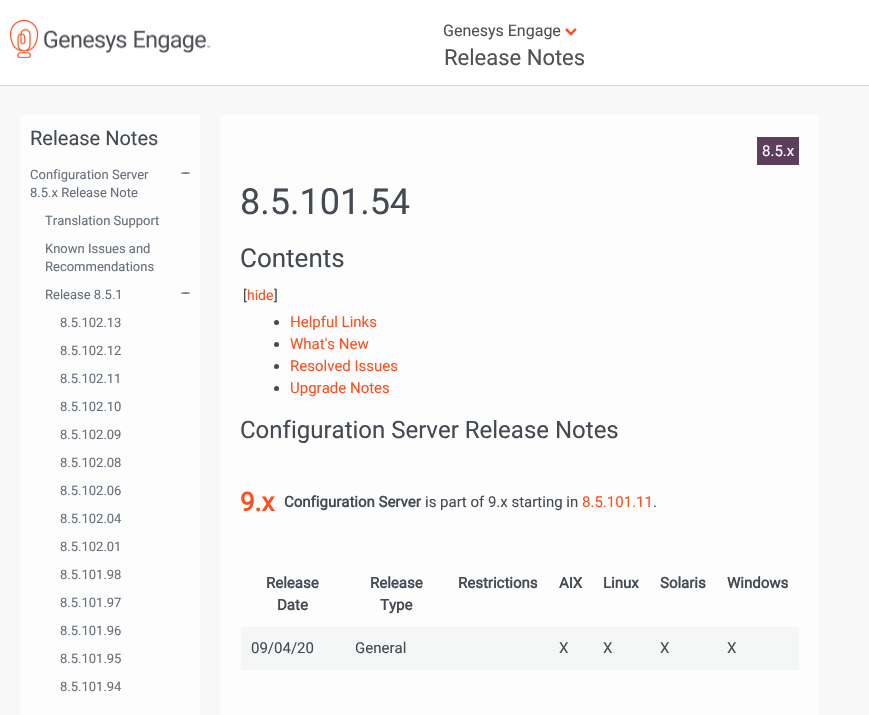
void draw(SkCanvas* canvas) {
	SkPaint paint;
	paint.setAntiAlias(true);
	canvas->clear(0xfff8f8f8);
	paint.setColor(0xffffffff);
	canvas->drawRect(SkRect::MakeXYWH(0, 0, 869, 85), paint);
	paint.setColor(0xffd3d3d4);
	canvas->drawRect(SkRect::MakeXYWH(0, 85, 869, 1), paint);
	canvas->drawImageRect(SkImages::DeferredFromEncodedData(SkData::MakeFromFileName("img1.png")), SkRect::MakeXYWH(10, 20, 200, 38), SkSamplingOptions());
	SkFont f1(fontMgr->matchFamilyStyle("Roboto", SkFontStyle::Normal()), 16);
	f1.setSubpixel(true);
	paint.setColor(0xff4e5054);
	canvas->drawString("Genesys Engage", 443, 36, f1, paint);
	canvas->drawImageRect(SkImages::DeferredFromEncodedData(SkData::MakeFromFileName("img2.png")), SkRect::MakeXYWH(565, 28, 12, 8), SkSamplingOptions());
	SkFont f2(fontMgr->matchFamilyStyle("Roboto", SkFontStyle::Normal()), 22);
	f2.setSubpixel(true);
	canvas->drawString("Release Notes", 444, 65, f2, paint);
	paint.setColor(0xfffdfdfd);
	canvas->drawRect(SkRect::MakeXYWH(20, 115, 180, 600), paint);
	SkFont f3(fontMgr->matchFamilyStyle("Roboto", SkFontStyle::Normal()), 20);
	f3.setSubpixel(true);
	paint.setColor(0xff444a52);
	canvas->drawString("Release Notes", 30, 145, f3, paint);
	SkFont f4(fontMgr->matchFamilyStyle("Roboto", SkFontStyle::Normal()), 13);
	f4.setSubpixel(true);
	paint.setColor(0xff666f7a);
	canvas->drawString("Configuration Server", 30, 179, f4, paint);
	canvas->drawString("8.5.x Release Note", 30, 197, f4, paint);
	canvas->drawImageRect(SkImages::DeferredFromEncodedData(SkData::MakeFromFileName("img3.png")), SkRect::MakeXYWH(181, 172, 9, 2), SkSamplingOptions());
	canvas->drawString("Translation Support", 45, 225, f4, paint);
	canvas->drawString("Known Issues and", 45, 253, f4, paint);
	canvas->drawString("Recommendations", 45, 271, f4, paint);
	canvas->drawString("Release 8.5.1", 45, 299, f4, paint);
	canvas->drawImageRect(SkImages::DeferredFromEncodedData(SkData::MakeFromFileName("img3.png")), SkRect::MakeXYWH(181, 292, 9, 2), SkSamplingOptions());
	canvas->drawString("8.5.102.13", 60, 327, f4, paint);
	canvas->drawString("8.5.102.12", 60, 355, f4, paint);
	canvas->drawString("8.5.102.11", 60, 383, f4, paint);
	canvas->drawString("8.5.102.10", 60, 411, f4, paint);
	canvas->drawString("8.5.102.09", 60, 439, f4, paint);
	canvas->drawString("8.5.102.08", 60, 467, f4, paint);
	canvas->drawString("8.5.102.06", 60, 495, f4, paint);
	canvas->drawString("8.5.102.04", 60, 523, f4, paint);
	canvas->drawString("8.5.102.01", 60, 551, f4, paint);
	canvas->drawString("8.5.101.98", 60, 579, f4, paint);
	canvas->drawString("8.5.101.97", 60, 607, f4, paint);
	canvas->drawString("8.5.101.96", 60, 635, f4, paint);
	canvas->drawString("8.5.101.95", 60, 663, f4, paint);
	canvas->drawString("8.5.101.94", 60, 691, f4, paint);
	paint.setColor(0xfffdfdfd);
	canvas->drawRect(SkRect::MakeXYWH(220, 115, 599, 600), paint);
	paint.setColor(0xff5d3e5d);
	canvas->drawRect(SkRect::MakeXYWH(757, 137, 42, 28), paint);
	SkFont f5(fontMgr->matchFamilyStyle("Roboto", SkFontStyle::Normal()), 15);
	f5.setSubpixel(true);
	paint.setColor(0xfffdfdfd);
	canvas->drawString("8.5.x", 762, 156, f5, paint);
	SkFont f6(fontMgr->matchFamilyStyle("Roboto", SkFontStyle::Normal()), 36);
	f6.setSubpixel(true);
	paint.setColor(0xff444a52);
	canvas->drawString("8.5.101.54", 240, 214, f6, paint);
	SkFont f7(fontMgr->matchFamilyStyle("Roboto", SkFontStyle::Normal()), 26);
	f7.setSubpixel(true);
	canvas->drawString("Contents", 240, 267, f7, paint);
	SkFont f8(fontMgr->matchFamilyStyle("Roboto", SkFontStyle::Normal()), 14);
	f8.setSubpixel(true);
	canvas->drawString("[", 243, 300, f8, paint);
	paint.setColor(0xffff4f1f);
	canvas->drawString("hide", 247, 300, f8, paint);
	paint.setColor(0xff444a52);
	canvas->drawString("]", 274, 300, f8, paint);
	canvas->drawCircle(276.5, 322.5, 2.5, paint);
	paint.setColor(0xffff4f1f);
	canvas->drawString("Helpful Links", 290, 327, f5, paint);
	paint.setColor(0xff444a52);
	canvas->drawCircle(276.5, 344.5, 2.5, paint);
	paint.setColor(0xffff4f1f);
	canvas->drawString("What's New", 290, 349, f5, paint);
	paint.setColor(0xff444a52);
	canvas->drawCircle(276.5, 366.5, 2.5, paint);
	paint.setColor(0xffff4f1f);
	canvas->drawString("Resolved Issues", 290, 371, f5, paint);
	paint.setColor(0xff444a52);
	canvas->drawCircle(276.5, 388.5, 2.5, paint);
	paint.setColor(0xffff4f1f);
	canvas->drawString("Upgrade Notes", 290, 393, f5, paint);
	SkFont f9(fontMgr->matchFamilyStyle("Roboto", SkFontStyle::Normal()), 24);
	f9.setSubpixel(true);
	paint.setColor(0xff444a52);
	canvas->drawString("Configuration Server Release Notes", 240, 438, f9, paint);
	SkFont f10(fontMgr->matchFamilyStyle("Roboto", SkFontStyle::Bold()), 26);
	f10.setSubpixel(true);
	paint.setColor(0xffff4f1f);
	canvas->drawString("9.x", 240, 511, f10, paint);
	SkFont f11(fontMgr->matchFamilyStyle("Roboto", SkFontStyle::Bold()), 15);
	f11.setSubpixel(true);
	paint.setColor(0xff444a52);
	canvas->drawString("Configuration Server", 284, 507, f11, paint);
	canvas->drawString("is part of 9.x starting in", 425, 507, f5, paint);
	paint.setColor(0xffff4f1f);
	canvas->drawString("8.5.101.11", 582, 507, f5, paint);
	paint.setColor(0xff444a52);
	canvas->drawString(".", 653, 507, f5, paint);
	canvas->drawString("Release", 266, 588, f11, paint);
	canvas->drawString("Date", 277, 610, f11, paint);
	canvas->drawString("Release", 370, 588, f11, paint);
	canvas->drawString("Type", 380, 610, f11, paint);
	canvas->drawString("Restrictions", 458, 588, f11, paint);
	canvas->drawString("AIX", 559, 588, f11, paint);
	canvas->drawString("Linux", 603, 588, f11, paint);
	canvas->drawString("Solaris", 660, 588, f11, paint);
	canvas->drawString("Windows", 727, 588, f11, paint);
	paint.setColor(0xfff5f7f7);
	canvas->drawRect(SkRect::MakeXYWH(241, 627, 558, 43), paint);
	paint.setColor(0xff444a52);
	canvas->drawString("09/04/20", 251, 653, f5, paint);
	canvas->drawString("General", 355, 653, f5, paint);
	canvas->drawString("X", 559, 653, f5, paint);
	canvas->drawString("X", 603, 653, f5, paint);
	canvas->drawString("X", 660, 653, f5, paint);
	canvas->drawString("X", 727, 653, f5, paint);
}
